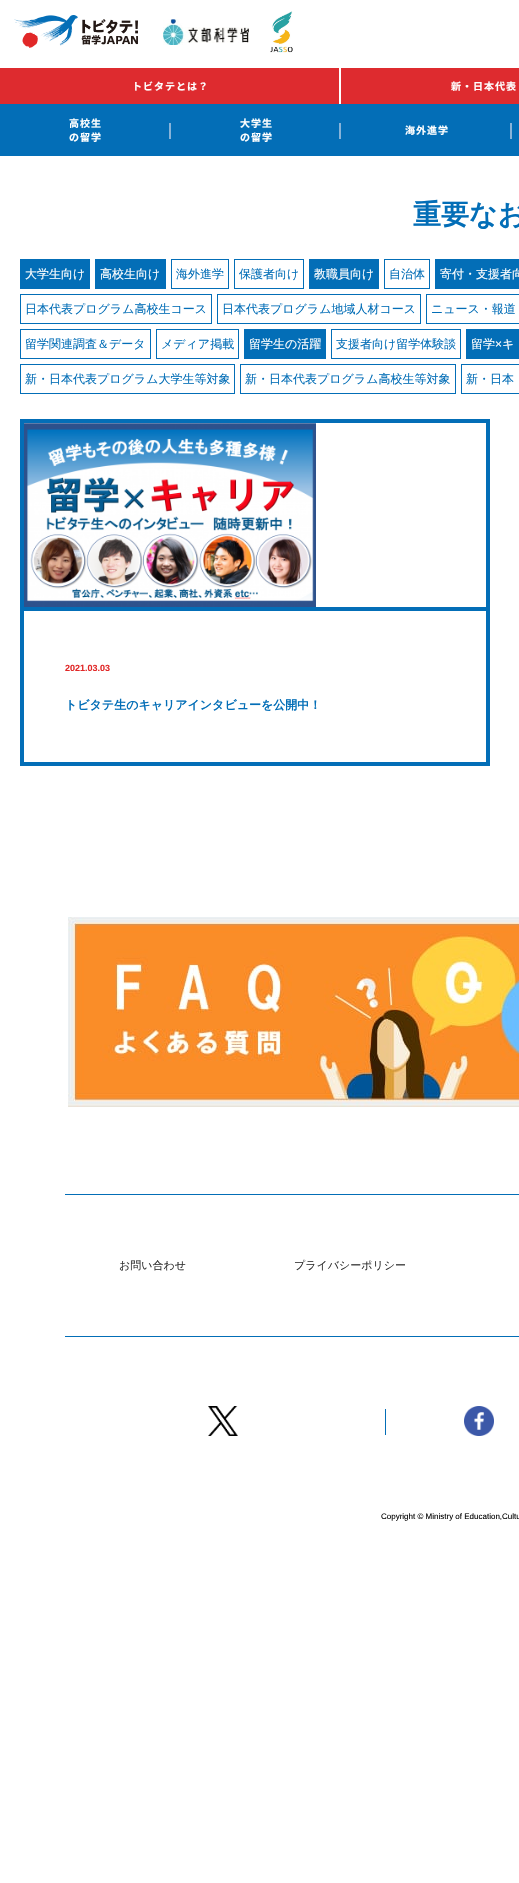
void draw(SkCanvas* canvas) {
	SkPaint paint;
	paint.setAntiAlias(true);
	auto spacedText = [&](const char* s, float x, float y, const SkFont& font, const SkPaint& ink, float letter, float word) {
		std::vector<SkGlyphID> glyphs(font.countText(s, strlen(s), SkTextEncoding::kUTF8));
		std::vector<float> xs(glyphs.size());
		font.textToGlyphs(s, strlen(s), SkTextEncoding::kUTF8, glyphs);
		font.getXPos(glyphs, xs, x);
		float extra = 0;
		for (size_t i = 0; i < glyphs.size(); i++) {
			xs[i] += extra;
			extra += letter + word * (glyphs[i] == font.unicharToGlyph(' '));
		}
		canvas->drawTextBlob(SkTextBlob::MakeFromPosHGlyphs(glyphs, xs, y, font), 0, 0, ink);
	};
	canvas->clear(0xffffffff);
	canvas->drawImageRect(SkImages::DeferredFromEncodedData(SkData::MakeFromFileName("img1.png")), SkRect::MakeXYWH(14, 15, 124, 33), SkSamplingOptions());
	canvas->drawImageRect(SkImages::DeferredFromEncodedData(SkData::MakeFromFileName("img2.png")), SkRect::MakeXYWH(163, 19, 86, 26), SkSamplingOptions());
	canvas->drawImageRect(SkImages::DeferredFromEncodedData(SkData::MakeFromFileName("img3.png")), SkRect::MakeXYWH(270, 11, 23, 42), SkSamplingOptions());
	paint.setColor(0xffde2b2f);
	canvas->drawRect(SkRect::MakeXYWH(0, 68, 519, 36), paint);
	SkFont f1(fontMgr->matchFamilyStyle("Noto Sans JP", SkFontStyle::Bold()), 10);
	f1.setSubpixel(true);
	paint.setColor(0xffffffff);
	spacedText("トビタテとは？", 132, 90, f1, paint, 1, 0);
	canvas->drawRect(SkRect::MakeXYWH(339, 68, 2, 36), paint);
	spacedText("新・日本代表", 451, 90, f1, paint, 1, 0);
	paint.setColor(0xff036eb7);
	canvas->drawRect(SkRect::MakeXYWH(0, 104, 519, 52), paint);
	paint.setColor(0xffffffff);
	spacedText("高校生", 69, 127, f1, paint, 1, 0);
	spacedText("の留学", 69, 141, f1, paint, 1, 0);
	paint.setColor(0xff87b3d9);
	canvas->drawRect(SkRect::MakeXYWH(169, 123, 2, 16), paint);
	paint.setColor(0xffffffff);
	spacedText("大学生", 240, 127, f1, paint, 1, 0);
	spacedText("の留学", 240, 141, f1, paint, 1, 0);
	paint.setColor(0xff87b3d9);
	canvas->drawRect(SkRect::MakeXYWH(339, 123, 2, 16), paint);
	paint.setColor(0xffffffff);
	spacedText("海外進学", 405, 134, f1, paint, 1, 0);
	paint.setColor(0xff87b3d9);
	canvas->drawRect(SkRect::MakeXYWH(510, 123, 2, 16), paint);
	SkFont f2(fontMgr->matchFamilyStyle("WenQuanYi Zen Hei", SkFontStyle::Bold()), 28);
	f2.setSubpixel(true);
	paint.setColor(0xff036eb7);
	canvas->drawString("重要なお", 413, 224, f2, paint);
	canvas->drawRect(SkRect::MakeXYWH(20, 259, 70, 30), paint);
	SkFont f3(fontMgr->matchFamilyStyle("WenQuanYi Zen Hei", SkFontStyle(500, SkFontStyle::kNormal_Width, SkFontStyle::kUpright_Slant)), 12);
	f3.setSubpixel(true);
	paint.setColor(0xffffffff);
	canvas->drawString("大学生向け", 25, 278, f3, paint);
	paint.setColor(0xff036eb7);
	canvas->drawRect(SkRect::MakeXYWH(95, 259, 71, 30), paint);
	paint.setColor(0xffffffff);
	canvas->drawString("高校生向け", 100, 278, f3, paint);
	paint.setStroke(true);
	paint.setStrokeWidth(1);
	paint.setColor(0xff036eb7);
	canvas->drawRect(SkRect::MakeXYWH(171.5, 259.5, 57, 29), paint);
	paint.setStroke(false);
	canvas->drawString("海外進学", 176, 278, f3, paint);
	paint.setStroke(true);
	canvas->drawRect(SkRect::MakeXYWH(234.5, 259.5, 69, 29), paint);
	paint.setStroke(false);
	canvas->drawString("保護者向け", 239, 278, f3, paint);
	canvas->drawRect(SkRect::MakeXYWH(309, 259, 70, 30), paint);
	paint.setColor(0xffffffff);
	canvas->drawString("教職員向け", 314, 278, f3, paint);
	paint.setStroke(true);
	paint.setColor(0xff036eb7);
	canvas->drawRect(SkRect::MakeXYWH(384.5, 259.5, 45, 29), paint);
	paint.setStroke(false);
	canvas->drawString("自治体", 389, 278, f3, paint);
	canvas->drawRect(SkRect::MakeXYWH(435, 259, 84, 30), paint);
	paint.setColor(0xffffffff);
	canvas->drawString("寄付・支援者向", 440, 278, f3, paint);
	paint.setStroke(true);
	paint.setColor(0xff036eb7);
	canvas->drawRect(SkRect::MakeXYWH(20.5, 294.5, 191, 29), paint);
	paint.setStroke(false);
	canvas->drawString("日本代表プログラム高校生コース", 25, 313, f3, paint);
	paint.setStroke(true);
	canvas->drawRect(SkRect::MakeXYWH(217.5, 294.5, 203, 29), paint);
	paint.setStroke(false);
	canvas->drawString("日本代表プログラム地域人材コース", 222, 313, f3, paint);
	paint.setStroke(true);
	canvas->drawRect(SkRect::MakeXYWH(426.5, 294.5, 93, 29), paint);
	paint.setStroke(false);
	canvas->drawString("ニュース・報道", 431, 313, f3, paint);
	paint.setStroke(true);
	canvas->drawRect(SkRect::MakeXYWH(20.5, 329.5, 130, 29), paint);
	paint.setStroke(false);
	canvas->drawString("留学関連調査＆データ", 25, 348, f3, paint);
	paint.setStroke(true);
	canvas->drawRect(SkRect::MakeXYWH(156.5, 329.5, 82, 29), paint);
	paint.setStroke(false);
	canvas->drawString("メディア掲載", 161, 348, f3, paint);
	canvas->drawRect(SkRect::MakeXYWH(244, 329, 82, 30), paint);
	paint.setColor(0xffffffff);
	canvas->drawString("留学生の活躍", 249, 348, f3, paint);
	paint.setStroke(true);
	paint.setColor(0xff036eb7);
	canvas->drawRect(SkRect::MakeXYWH(331.5, 329.5, 129, 29), paint);
	paint.setStroke(false);
	canvas->drawString("支援者向け留学体験談", 336, 348, f3, paint);
	canvas->drawRect(SkRect::MakeXYWH(466, 329, 53, 30), paint);
	paint.setColor(0xffffffff);
	canvas->drawString("留学", 471, 348, f3, paint);
	SkFont f4(fontMgr->matchFamilyStyle("Liberation Sans", SkFontStyle::Normal()), 12);
	f4.setSubpixel(true);
	canvas->drawString("×", 495, 348, f4, paint);
	canvas->drawString("キ", 502, 348, f3, paint);
	paint.setStroke(true);
	paint.setColor(0xff036eb7);
	canvas->drawRect(SkRect::MakeXYWH(20.5, 364.5, 214, 29), paint);
	paint.setStroke(false);
	canvas->drawString("新・日本代表プログラム大学生等対象", 25, 383, f3, paint);
	paint.setStroke(true);
	canvas->drawRect(SkRect::MakeXYWH(240.5, 364.5, 215, 29), paint);
	paint.setStroke(false);
	canvas->drawString("新・日本代表プログラム高校生等対象", 245, 383, f3, paint);
	paint.setStroke(true);
	canvas->drawRect(SkRect::MakeXYWH(461.5, 364.5, 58, 29), paint);
	paint.setStroke(false);
	canvas->drawString("新・日本", 466, 383, f3, paint);
	paint.setStroke(true);
	paint.setStrokeWidth(4);
	canvas->drawRect(SkRect::MakeXYWH(22, 421, 466, 343), paint);
	paint.setStroke(false);
	canvas->drawRect(SkRect::MakeXYWH(24, 607, 462, 4), paint);
	canvas->drawImageRect(SkImages::DeferredFromEncodedData(SkData::MakeFromFileName("img4.png")), SkRect::MakeXYWH(24, 423, 292, 184), SkSamplingOptions());
	SkFont f5(fontMgr->matchFamilyStyle("Liberation Sans", SkFontStyle::Bold()), 9);
	f5.setSubpixel(true);
	paint.setColor(0xffe12828);
	canvas->drawString("2021.03.03", 65, 671, f5, paint);
	SkFont f6(fontMgr->matchFamilyStyle("WenQuanYi Zen Hei", SkFontStyle::Bold()), 12);
	f6.setSubpixel(true);
	paint.setColor(0xff036eb7);
	canvas->drawString("トビタテ生のキャリアインタビューを公開中！", 65, 709, f6, paint);
	canvas->drawRect(SkRect::MakeXYWH(65, 1194, 454, 1), paint);
	canvas->drawImageRect(SkImages::DeferredFromEncodedData(SkData::MakeFromFileName("img5.png")), SkRect::MakeXYWH(68, 917, 451, 190), SkSamplingOptions());
	canvas->drawRect(SkRect::MakeXYWH(65, 1336, 454, 1), paint);
	SkFont f7(fontMgr->matchFamilyStyle("WenQuanYi Zen Hei", SkFontStyle(500, SkFontStyle::kNormal_Width, SkFontStyle::kUpright_Slant)), 11);
	f7.setSubpixel(true);
	paint.setColor(0xff333333);
	canvas->drawString("お問い合わせ", 119, 1269, f7, paint);
	canvas->drawString("プライバシーポリシー", 294, 1269, f7, paint);
	canvas->drawImageRect(SkImages::DeferredFromEncodedData(SkData::MakeFromFileName("img6.png")), SkRect::MakeXYWH(208, 1406, 30, 30), SkSamplingOptions());
	paint.setColor(0xff036eb7);
	canvas->drawRect(SkRect::MakeXYWH(385, 1409, 1, 26), paint);
	canvas->drawImageRect(SkImages::DeferredFromEncodedData(SkData::MakeFromFileName("img7.png")), SkRect::MakeXYWH(464, 1406, 30, 30), SkSamplingOptions());
	SkFont f8(fontMgr->matchFamilyStyle("Liberation Sans", SkFontStyle::Normal()), 8);
	f8.setSubpixel(true);
	paint.setColor(0xff000000);
	canvas->drawString("Copyright © Ministry of Education,Cultu", 381, 1519, f8, paint);
}
